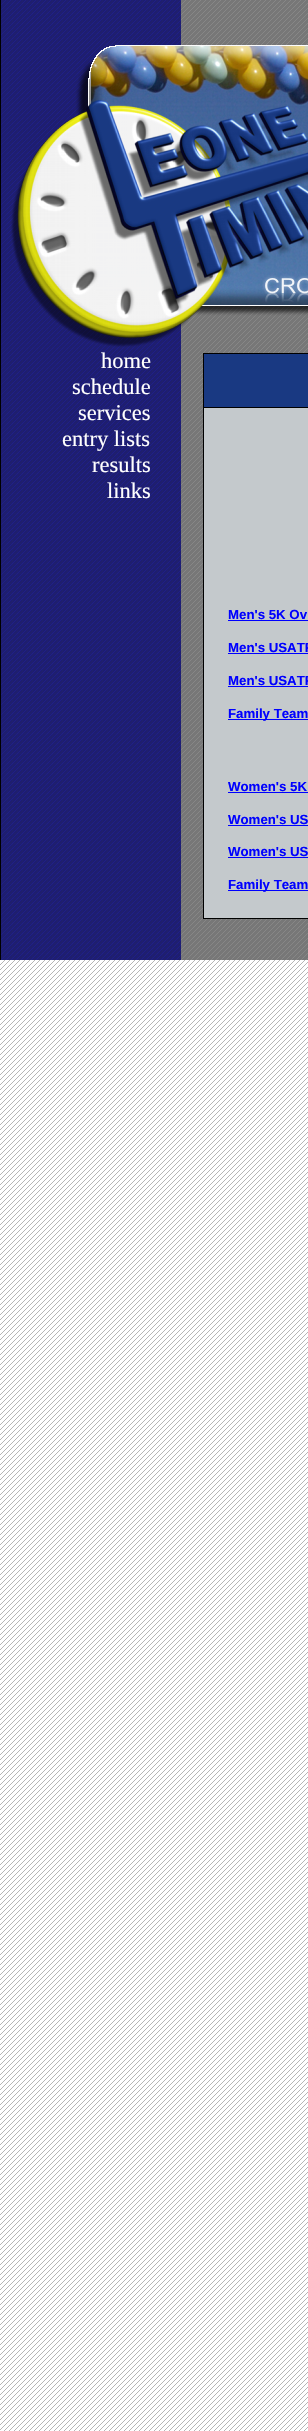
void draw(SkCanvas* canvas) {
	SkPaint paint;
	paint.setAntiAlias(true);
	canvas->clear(0xffffffff);
	canvas->drawImageRect(SkImages::DeferredFromEncodedData(SkData::MakeFromFileName("img1.png")), SkRect::MakeXYWH(0, 960, 308, 1471), SkSamplingOptions());
	canvas->drawImageRect(SkImages::DeferredFromEncodedData(SkData::MakeFromFileName("img2.png")), SkRect::MakeXYWH(1, 0, 180, 960), SkSamplingOptions());
	paint.setColor(0xff000000);
	canvas->drawRect(SkRect::MakeXYWH(0, 0, 1, 960), paint);
	canvas->drawImageRect(SkImages::DeferredFromEncodedData(SkData::MakeFromFileName("img3.png")), SkRect::MakeXYWH(11, 45, 170, 302), SkSamplingOptions());
	SkFont f1(fontMgr->matchFamilyStyle("Liberation Serif", SkFontStyle::Normal()), 22.5);
	f1.setSubpixel(true);
	paint.setColor(0xffffffff);
	canvas->drawString("home", 101, 368, f1, paint);
	canvas->drawString("schedule", 72, 394, f1, paint);
	canvas->drawString("services", 78, 420, f1, paint);
	canvas->drawString("entry lists", 62, 446, f1, paint);
	canvas->drawString("results", 92, 472, f1, paint);
	canvas->drawString("links", 107, 498, f1, paint);
	canvas->drawImageRect(SkImages::DeferredFromEncodedData(SkData::MakeFromFileName("img4.png")), SkRect::MakeXYWH(181, 0, 127, 960), SkSamplingOptions());
	canvas->drawImageRect(SkImages::DeferredFromEncodedData(SkData::MakeFromFileName("img5.png")), SkRect::MakeXYWH(181, 45, 127, 282), SkSamplingOptions());
	paint.setColor(0xff193982);
	canvas->drawRect(SkRect::MakeXYWH(203.5, 353.5, 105, 54), paint);
	paint.setStroke(true);
	paint.setStrokeWidth(1);
	paint.setColor(0xff000000);
	canvas->drawRect(SkRect::MakeXYWH(203.5, 353.5, 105, 54), paint);
	paint.setStroke(false);
	paint.setColor(0xffc4c9cc);
	canvas->drawRect(SkRect::MakeXYWH(204, 408, 104, 510), paint);
	paint.setColor(0xff000000);
	canvas->drawRect(SkRect::MakeXYWH(203, 918, 105, 1), paint);
	canvas->drawRect(SkRect::MakeXYWH(203, 408, 1, 511), paint);
	SkFont f2(fontMgr->matchFamilyStyle("Liberation Sans", SkFontStyle::Bold()), 13.25);
	f2.setSubpixel(true);
	paint.setColor(0xff0000ff);
	canvas->drawString("Men's 5K Ov", 228, 619, f2, paint);
	canvas->drawRect(SkRect::MakeXYWH(228, 620, 80, 1), paint);
	canvas->drawString("Men's USATF", 228, 652, f2, paint);
	canvas->drawRect(SkRect::MakeXYWH(228, 653, 80, 1), paint);
	canvas->drawString("Men's USATF", 228, 685, f2, paint);
	canvas->drawRect(SkRect::MakeXYWH(228, 686, 80, 1), paint);
	canvas->drawRect(SkRect::MakeXYWH(228, 719, 80, 1), paint);
	canvas->drawString("Family Team", 228, 718, f2, paint);
	canvas->drawString("Women's 5K", 228, 791, f2, paint);
	canvas->drawRect(SkRect::MakeXYWH(228, 792, 80, 1), paint);
	canvas->drawString("Women's US", 228, 824, f2, paint);
	canvas->drawRect(SkRect::MakeXYWH(228, 825, 80, 1), paint);
	canvas->drawString("Women's US", 228, 856, f2, paint);
	canvas->drawRect(SkRect::MakeXYWH(228, 857, 80, 1), paint);
	canvas->drawRect(SkRect::MakeXYWH(228, 890, 80, 1), paint);
	canvas->drawString("Family Team", 228, 889, f2, paint);
}
